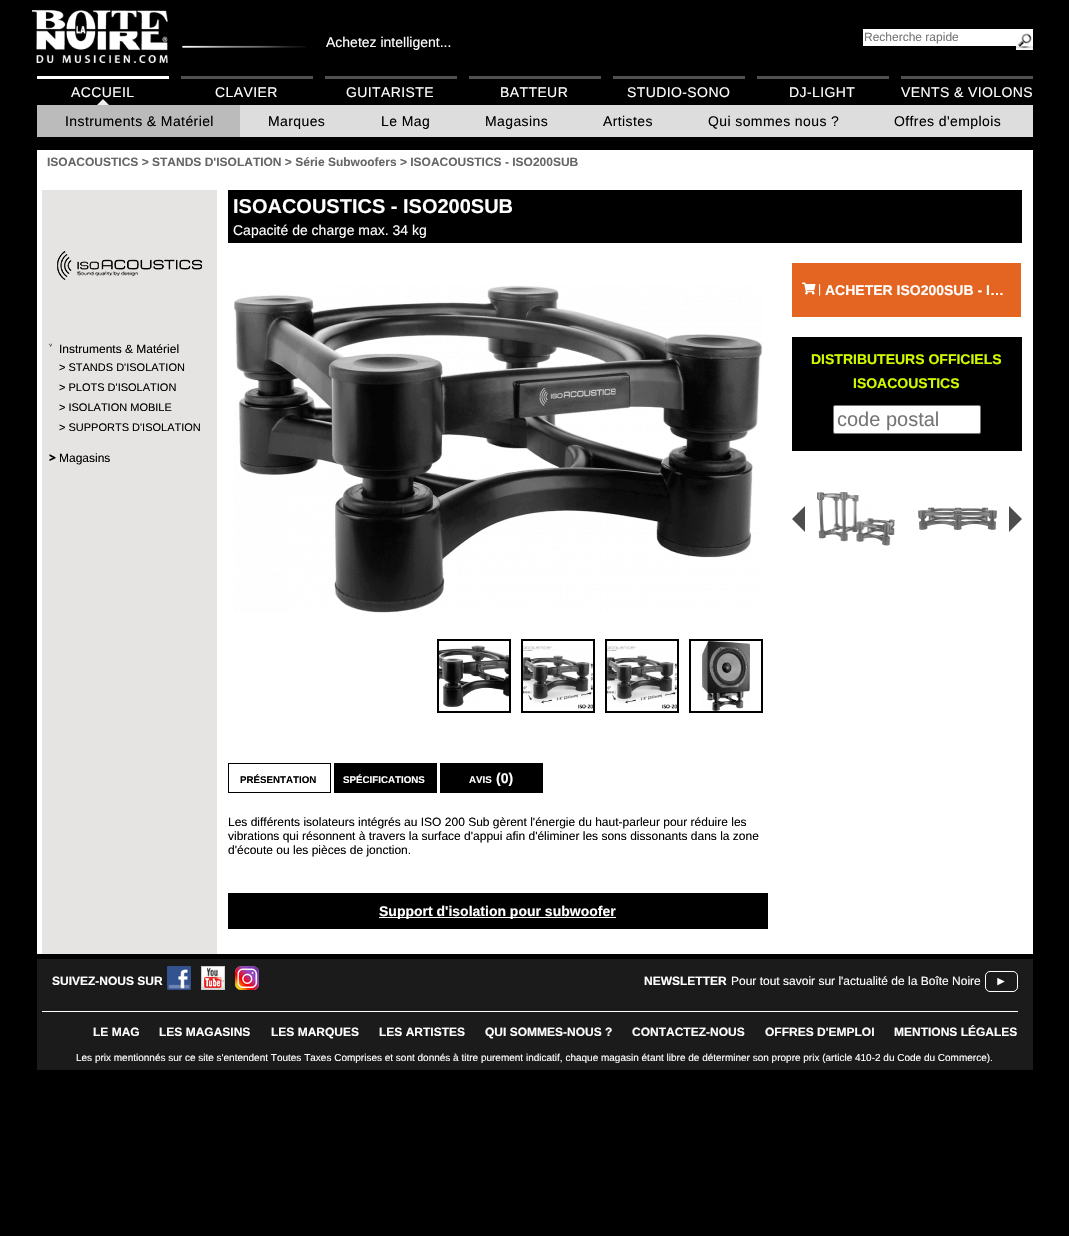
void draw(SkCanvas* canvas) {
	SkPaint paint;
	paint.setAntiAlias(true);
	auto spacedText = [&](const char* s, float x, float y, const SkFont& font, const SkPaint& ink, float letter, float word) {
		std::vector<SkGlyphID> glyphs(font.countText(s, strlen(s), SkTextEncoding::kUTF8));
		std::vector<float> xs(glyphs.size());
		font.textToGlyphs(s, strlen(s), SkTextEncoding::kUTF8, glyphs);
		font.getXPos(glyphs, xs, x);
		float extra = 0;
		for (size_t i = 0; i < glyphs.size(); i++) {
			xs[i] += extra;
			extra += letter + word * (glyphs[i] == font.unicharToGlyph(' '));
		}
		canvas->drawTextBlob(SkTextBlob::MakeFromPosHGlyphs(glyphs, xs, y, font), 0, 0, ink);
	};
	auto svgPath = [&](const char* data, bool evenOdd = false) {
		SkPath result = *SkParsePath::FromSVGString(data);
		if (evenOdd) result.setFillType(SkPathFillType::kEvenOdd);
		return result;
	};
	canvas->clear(0xff000000);
	canvas->drawImageRect(SkImages::DeferredFromEncodedData(SkData::MakeFromFileName("img1.png")), SkRect::MakeXYWH(182, 45, 124, 3), SkSamplingOptions());
	canvas->drawImageRect(SkImages::DeferredFromEncodedData(SkData::MakeFromFileName("img2.png")), SkRect::MakeXYWH(32, 10, 136, 53), SkSamplingOptions());
	SkFont f1(fontMgr->matchFamilyStyle("Liberation Sans", SkFontStyle::Normal()), 14);
	f1.setSubpixel(true);
	paint.setColor(0xffffffff);
	canvas->drawString("Achetez intelligent...", 326, 47, f1, paint);
	canvas->drawRect(SkRect::MakeXYWH(863, 29, 170, 17), paint);
	SkFont f2(fontMgr->matchFamilyStyle("Liberation Sans", SkFontStyle::Normal()), 12);
	f2.setSubpixel(true);
	paint.setColor(0xff757575);
	canvas->drawString("Recherche rapide", 864, 41, f2, paint);
	canvas->drawImageRect(SkImages::DeferredFromEncodedData(SkData::MakeFromFileName("img3.png")), SkRect::MakeXYWH(1016, 33, 17, 17), SkSamplingOptions());
	paint.setColor(0xffffffff);
	canvas->drawRect(SkRect::MakeXYWH(37, 76, 132, 3), paint);
	spacedText("ACCUEIL", 71, 97, f1, paint, 0.4, 0);
	paint.setColor(0xffeeeeee);
	canvas->drawPath(svgPath("M109 105H97L103 99Z"), paint);
	paint.setColor(0xffdddddd);
	canvas->drawRect(SkRect::MakeXYWH(240, 105, 793, 32), paint);
	paint.setColor(0xffbbbbbb);
	canvas->drawRect(SkRect::MakeXYWH(37, 105, 203, 32), paint);
	paint.setColor(0xff000000);
	spacedText("Instruments & Matériel", 65, 126, f1, paint, 0.4, 0);
	spacedText("Marques", 268, 126, f1, paint, 0.4, 0);
	spacedText("Le Mag", 381, 126, f1, paint, 0.4, 0);
	spacedText("Magasins", 485, 126, f1, paint, 0.4, 0);
	spacedText("Artistes", 603, 126, f1, paint, 0.4, 0);
	spacedText("Qui sommes nous ?", 708, 126, f1, paint, 0.4, 0);
	spacedText("Offres d'emplois", 894, 126, f1, paint, 0.4, 0);
	paint.setColor(0xff515152);
	canvas->drawRect(SkRect::MakeXYWH(181, 76, 132, 3), paint);
	paint.setColor(0xffffffff);
	spacedText("CLAVIER", 215, 97, f1, paint, 0.4, 0);
	paint.setColor(0xff515152);
	canvas->drawRect(SkRect::MakeXYWH(325, 76, 132, 3), paint);
	paint.setColor(0xffffffff);
	spacedText("GUITARISTE", 346, 97, f1, paint, 0.4, 0);
	paint.setColor(0xff515152);
	canvas->drawRect(SkRect::MakeXYWH(469, 76, 132, 3), paint);
	paint.setColor(0xffffffff);
	spacedText("BATTEUR", 500, 97, f1, paint, 0.4, 0);
	paint.setColor(0xff515152);
	canvas->drawRect(SkRect::MakeXYWH(613, 76, 132, 3), paint);
	paint.setColor(0xffffffff);
	spacedText("STUDIO-SONO", 627, 97, f1, paint, 0.4, 0);
	paint.setColor(0xff515152);
	canvas->drawRect(SkRect::MakeXYWH(757, 76, 132, 3), paint);
	paint.setColor(0xffffffff);
	spacedText("DJ-LIGHT", 789, 97, f1, paint, 0.4, 0);
	paint.setColor(0xff515152);
	canvas->drawRect(SkRect::MakeXYWH(901, 76, 132, 3), paint);
	paint.setColor(0xffffffff);
	spacedText("VENTS & VIOLONS", 901, 97, f1, paint, 0.4, 0);
	canvas->drawRect(SkRect::MakeXYWH(37, 150, 996, 804), paint);
	SkFont f3(fontMgr->matchFamilyStyle("Liberation Sans", SkFontStyle::Bold()), 12);
	f3.setSubpixel(true);
	paint.setColor(0xff666666);
	canvas->drawString("ISOACOUSTICS > STANDS D'ISOLATION > Série Subwoofers > ISOACOUSTICS - ISO200SUB", 47, 166, f3, paint);
	paint.setColor(0xffe5e4e2);
	canvas->drawRect(SkRect::MakeXYWH(42, 190, 175, 764), paint);
	canvas->drawImageRect(SkImages::DeferredFromEncodedData(SkData::MakeFromFileName("img4.png")), SkRect::MakeXYWH(57, 251, 145, 29), SkSamplingOptions());
	SkFont f4(fontMgr->matchFamilyStyle("Noto Sans", SkFontStyle::Normal()), 12);
	f4.setSubpixel(true);
	paint.setColor(0xff000000);
	canvas->drawString("˅", 49, 353, f4, paint);
	canvas->drawString("Instruments & Matériel", 59, 353, f2, paint);
	SkFont f5(fontMgr->matchFamilyStyle("Liberation Sans", SkFontStyle::Normal()), 11);
	f5.setSubpixel(true);
	canvas->drawString("> STANDS D'ISOLATION", 59, 371, f5, paint);
	canvas->drawString("> PLOTS D'ISOLATION", 59, 391, f5, paint);
	canvas->drawString("> ISOLATION MOBILE", 59, 411, f5, paint);
	canvas->drawString("> SUPPORTS D'ISOLATION", 59, 431, f5, paint);
	SkFont f6(fontMgr->matchFamilyStyle("Noto Sans", SkFontStyle(900, SkFontStyle::kNormal_Width, SkFontStyle::kUpright_Slant)), 12);
	f6.setSubpixel(true);
	canvas->drawString(">", 49, 462, f6, paint);
	canvas->drawString("Magasins", 59, 462, f2, paint);
	canvas->drawRect(SkRect::MakeXYWH(228, 190, 794, 53), paint);
	SkFont f7(fontMgr->matchFamilyStyle("Liberation Sans", SkFontStyle::Bold()), 20);
	f7.setSubpixel(true);
	paint.setColor(0xffffffff);
	canvas->drawString("ISOACOUSTICS - ISO200SUB", 233, 213, f7, paint);
	canvas->drawString("Capacité de charge max. 34 kg", 233, 235, f1, paint);
	paint.setColor(0xffe36521);
	canvas->drawRect(SkRect::MakeXYWH(792, 263, 229, 54), paint);
	canvas->drawImageRect(SkImages::DeferredFromEncodedData(SkData::MakeFromFileName("img5.png")), SkRect::MakeXYWH(802, 282, 14, 13), SkSamplingOptions());
	paint.setColor(0xffffffff);
	canvas->drawString("|", 818, 293, f2, paint);
	SkFont f8(fontMgr->matchFamilyStyle("Liberation Sans", SkFontStyle::Bold()), 14);
	f8.setSubpixel(true);
	canvas->drawString("ACHETER ISO200SUB - I…", 825, 295, f8, paint);
	paint.setColor(0xff000000);
	canvas->drawRect(SkRect::MakeXYWH(792, 337, 230, 114), paint);
	paint.setColor(0xffd2f800);
	canvas->drawString("DISTRIBUTEURS OFFICIELS", 811, 364, f8, paint);
	canvas->drawString("ISOACOUSTICS", 853, 388, f8, paint);
	paint.setColor(0xffffffff);
	canvas->drawRoundRect(SkRect::MakeXYWH(833.5, 405.5, 147, 28), 1.5, 1.5, paint);
	paint.setStroke(true);
	paint.setStrokeWidth(1);
	paint.setColor(0xff767676);
	canvas->drawRoundRect(SkRect::MakeXYWH(833.5, 405.5, 147, 28), 1.5, 1.5, paint);
	SkFont f9(fontMgr->matchFamilyStyle("Liberation Sans", SkFontStyle::Normal()), 20);
	f9.setSubpixel(true);
	paint.setStroke(false);
	paint.setColor(0xff757575);
	canvas->drawString("code postal", 837, 426, f9, paint);
	paint.setColor(0xff4d4d4d);
	canvas->drawPath(svgPath("M805 506V532L792 519Z"), paint);
	canvas->drawImageRect(SkImages::DeferredFromEncodedData(SkData::MakeFromFileName("img6.png")), SkRect::MakeXYWH(817, 492, 78, 54), SkSamplingOptions());
	canvas->drawImageRect(SkImages::DeferredFromEncodedData(SkData::MakeFromFileName("img7.png")), SkRect::MakeXYWH(918, 507, 79, 23), SkSamplingOptions());
	canvas->drawPath(svgPath("M1009 532V506L1022 519Z"), paint);
	canvas->drawImageRect(SkImages::DeferredFromEncodedData(SkData::MakeFromFileName("img8.png")), SkRect::MakeXYWH(234, 285, 529, 328), SkSamplingOptions());
	paint.setStroke(true);
	paint.setStrokeWidth(2);
	paint.setColor(0xff000000);
	canvas->drawRect(SkRect::MakeXYWH(438, 640, 72, 72), paint);
	canvas->drawImageRect(SkImages::DeferredFromEncodedData(SkData::MakeFromFileName("img9.png")), SkRect::MakeXYWH(439, 645, 70, 62), SkSamplingOptions());
	canvas->drawRect(SkRect::MakeXYWH(522, 640, 72, 72), paint);
	canvas->drawImageRect(SkImages::DeferredFromEncodedData(SkData::MakeFromFileName("img10.png")), SkRect::MakeXYWH(523, 646, 70, 63), SkSamplingOptions());
	canvas->drawRect(SkRect::MakeXYWH(606, 640, 72, 72), paint);
	canvas->drawImageRect(SkImages::DeferredFromEncodedData(SkData::MakeFromFileName("img11.png")), SkRect::MakeXYWH(607, 646, 70, 63), SkSamplingOptions());
	canvas->drawRect(SkRect::MakeXYWH(690, 640, 72, 72), paint);
	canvas->drawImageRect(SkImages::DeferredFromEncodedData(SkData::MakeFromFileName("img12.png")), SkRect::MakeXYWH(702, 641, 48, 70), SkSamplingOptions());
	paint.setStrokeWidth(1);
	canvas->drawRect(SkRect::MakeXYWH(228.5, 763.5, 102, 29), paint);
	SkFont f10(fontMgr->matchFamilyStyle("Liberation Sans", SkFontStyle::Bold()), 9.75);
	f10.setSubpixel(true);
	paint.setStroke(false);
	canvas->drawString("PRÉSENTATION", 240, 783, f10, paint);
	canvas->drawRect(SkRect::MakeXYWH(334, 763, 103, 30), paint);
	paint.setColor(0xffffffff);
	canvas->drawString("SPÉCIFICATIONS", 343, 783, f10, paint);
	paint.setColor(0xff000000);
	canvas->drawRect(SkRect::MakeXYWH(440, 763, 103, 30), paint);
	paint.setColor(0xffffffff);
	canvas->drawString("AVIS", 469, 783, f10, paint);
	canvas->drawString("(0)", 496, 783, f8, paint);
	paint.setColor(0xff000000);
	canvas->drawString("Les différents isolateurs intégrés au ISO 200 Sub gèrent l'énergie du haut-parleur pour réduire les", 228, 826, f2, paint);
	canvas->drawString("vibrations qui résonnent à travers la surface d'appui afin d'éliminer les sons dissonants dans la zone", 228, 840, f2, paint);
	canvas->drawString("d'écoute ou les pièces de jonction.", 228, 854, f2, paint);
	canvas->drawRect(SkRect::MakeXYWH(228, 893, 540, 36), paint);
	paint.setColor(0xffffffff);
	canvas->drawRect(SkRect::MakeXYWH(379, 917, 237, 1), paint);
	canvas->drawString("Support d'isolation pour subwoofer", 379, 916, f8, paint);
	paint.setColor(0xff1b1b1b);
	canvas->drawRect(SkRect::MakeXYWH(37, 959, 996, 111), paint);
	paint.setColor(0xffffffff);
	canvas->drawString("SUIVEZ-NOUS SUR", 52, 985, f3, paint);
	canvas->drawImageRect(SkImages::DeferredFromEncodedData(SkData::MakeFromFileName("img13.png")), SkRect::MakeXYWH(167, 966, 24, 24), SkSamplingOptions());
	canvas->drawImageRect(SkImages::DeferredFromEncodedData(SkData::MakeFromFileName("img14.png")), SkRect::MakeXYWH(201, 966, 24, 24), SkSamplingOptions());
	canvas->drawImageRect(SkImages::DeferredFromEncodedData(SkData::MakeFromFileName("img15.png")), SkRect::MakeXYWH(235, 966, 24, 24), SkSamplingOptions());
	canvas->drawString("NEWSLETTER", 644, 985, f3, paint);
	canvas->drawString("Pour tout savoir sur l'actualité de la Boîte Noire", 731, 985, f2, paint);
	paint.setStroke(true);
	canvas->drawRoundRect(SkRect::MakeXYWH(985.5, 971.5, 32, 20), 4.5, 4.5, paint);
	paint.setStroke(false);
	canvas->drawString("►", 995, 985, f2, paint);
	canvas->drawRect(SkRect::MakeXYWH(42, 1011, 976, 1), paint);
	canvas->drawString("LE MAG", 93, 1036, f3, paint);
	canvas->drawString("LES MAGASINS", 159, 1036, f3, paint);
	canvas->drawString("LES MARQUES", 271, 1036, f3, paint);
	canvas->drawString("LES ARTISTES", 379, 1036, f3, paint);
	canvas->drawString("QUI SOMMES-NOUS ?", 485, 1036, f3, paint);
	canvas->drawString("CONTACTEZ-NOUS", 632, 1036, f3, paint);
	canvas->drawString("OFFRES D'EMPLOI", 765, 1036, f3, paint);
	canvas->drawString("MENTIONS LÉGALES", 894, 1036, f3, paint);
	SkFont f11(fontMgr->matchFamilyStyle("Liberation Sans", SkFontStyle::Normal()), 10);
	f11.setSubpixel(true);
	canvas->drawString("Les prix mentionnés sur ce site s'entendent Toutes Taxes Comprises et sont donnés à titre purement indicatif, chaque magasin étant libre de déterminer son propre prix (article 410-2 du Code du Commerce).", 76, 1061, f11, paint);
}
